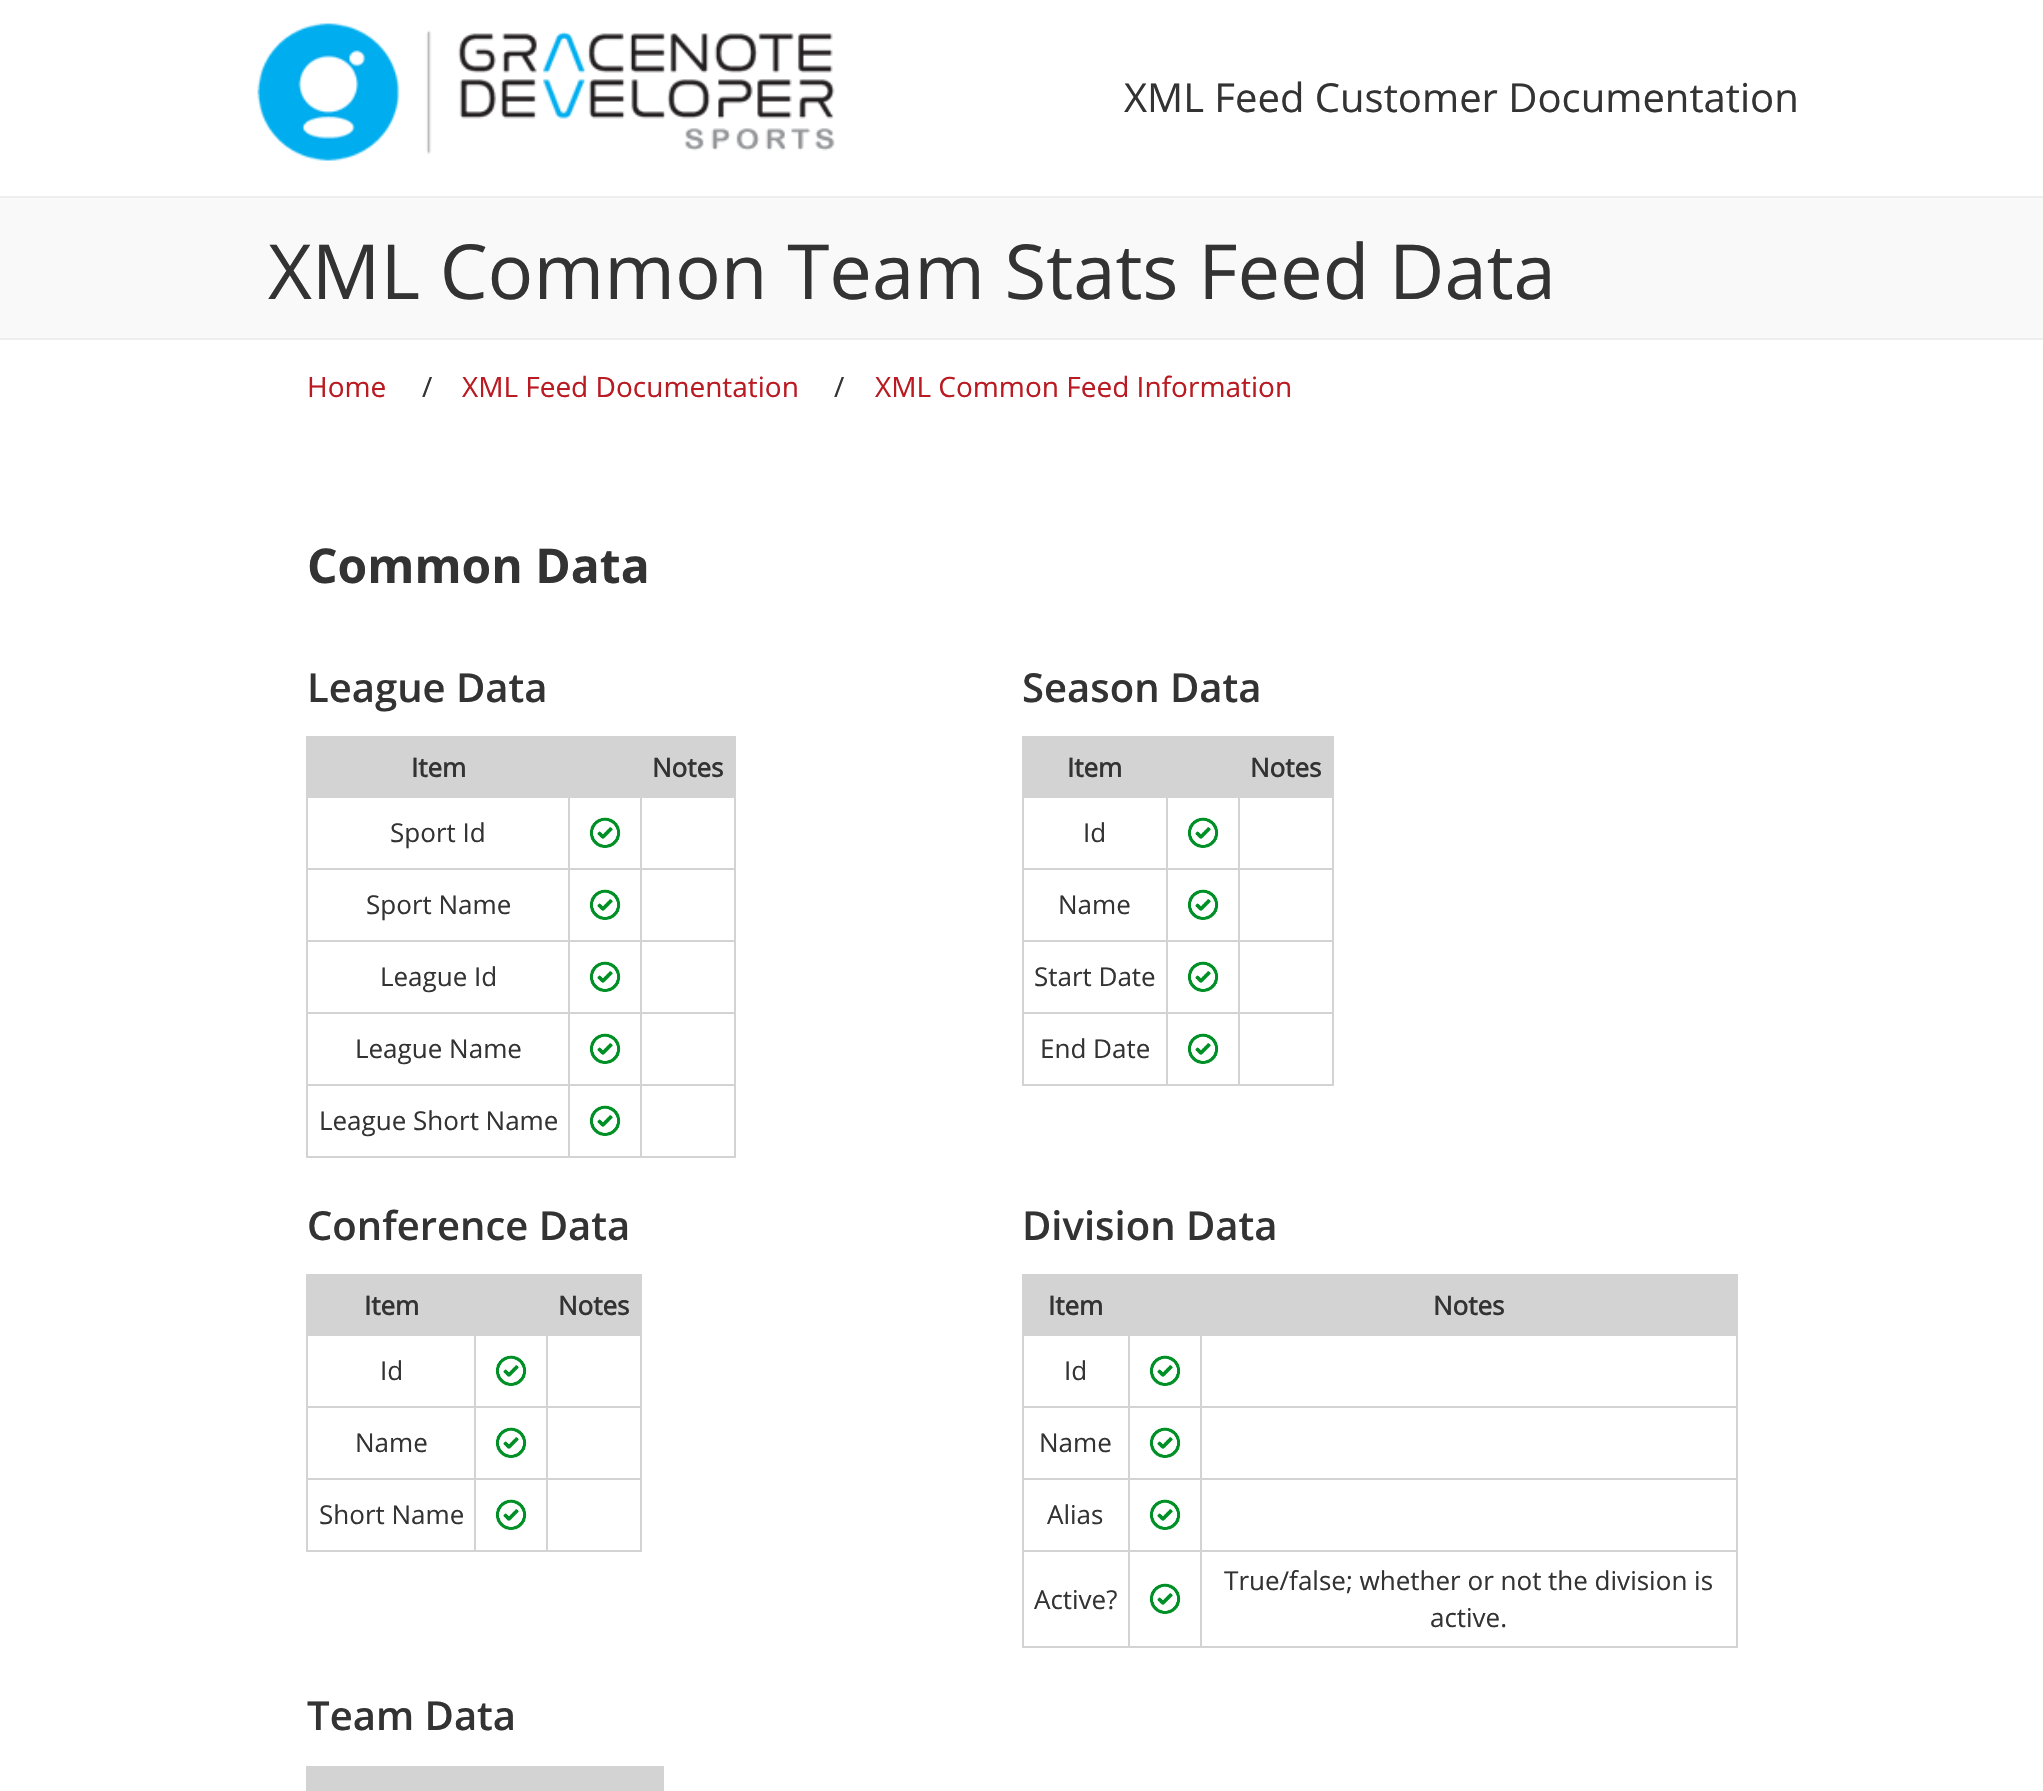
void draw(SkCanvas* canvas) {
	SkPaint paint;
	paint.setAntiAlias(true);
	canvas->clear(0xffffffff);
	canvas->drawImageRect(SkImages::DeferredFromEncodedData(SkData::MakeFromFileName("img1.png")), SkRect::MakeXYWH(257, 23, 578, 138), SkSamplingOptions());
	SkFont f1(fontMgr->matchFamilyStyle("Open Sans", SkFontStyle::Normal()), 40);
	f1.setSubpixel(true);
	paint.setColor(0xff333333);
	canvas->drawString("XML Feed Customer Documentation", 1124, 112, f1, paint);
	paint.setColor(0xfff9f9f9);
	canvas->drawRect(SkRect::MakeXYWH(0, 198, 2043, 140), paint);
	paint.setColor(0xffeeeeee);
	canvas->drawRect(SkRect::MakeXYWH(0, 196, 2043, 2), paint);
	canvas->drawRect(SkRect::MakeXYWH(0, 338, 2043, 2), paint);
	SkFont f2(fontMgr->matchFamilyStyle("Open Sans", SkFontStyle::Normal()), 76);
	f2.setSubpixel(true);
	paint.setColor(0xff333333);
	canvas->drawString("XML Common Team Stats Feed Data", 268, 299, f2, paint);
	SkFont f3(fontMgr->matchFamilyStyle("Open Sans", SkFontStyle::Normal()), 28);
	f3.setSubpixel(true);
	paint.setColor(0xffba1b23);
	canvas->drawString("Home", 307, 397, f3, paint);
	paint.setColor(0xff333333);
	canvas->drawString("/", 422, 397, f3, paint);
	paint.setColor(0xffba1b23);
	canvas->drawString("XML Feed Documentation", 462, 397, f3, paint);
	paint.setColor(0xff333333);
	canvas->drawString("/", 834, 397, f3, paint);
	paint.setColor(0xffba1b23);
	canvas->drawString("XML Common Feed Information", 875, 397, f3, paint);
	SkFont f4(fontMgr->matchFamilyStyle("Open Sans", SkFontStyle::Bold()), 48);
	f4.setSubpixel(true);
	paint.setColor(0xff333333);
	canvas->drawString("Common Data", 307, 583, f4, paint);
	SkFont f5(fontMgr->matchFamilyStyle("Open Sans", SkFontStyle(600, SkFontStyle::kNormal_Width, SkFontStyle::kUpright_Slant)), 40);
	f5.setSubpixel(true);
	canvas->drawString("League Data", 307, 702, f5, paint);
	paint.setColor(0xffd3d3d3);
	canvas->drawRect(SkRect::MakeXYWH(308, 738, 426, 58), paint);
	canvas->drawRect(SkRect::MakeXYWH(306, 736, 430, 2), paint);
	canvas->drawRect(SkRect::MakeXYWH(640, 796, 96, 2), paint);
	canvas->drawRect(SkRect::MakeXYWH(640, 868, 96, 2), paint);
	canvas->drawRect(SkRect::MakeXYWH(640, 940, 96, 2), paint);
	canvas->drawRect(SkRect::MakeXYWH(640, 1012, 96, 2), paint);
	canvas->drawRect(SkRect::MakeXYWH(640, 1084, 96, 2), paint);
	canvas->drawRect(SkRect::MakeXYWH(734, 1084, 2, 74), paint);
	canvas->drawRect(SkRect::MakeXYWH(640, 1156, 96, 2), paint);
	canvas->drawRect(SkRect::MakeXYWH(640, 1084, 2, 74), paint);
	canvas->drawRect(SkRect::MakeXYWH(568, 1084, 74, 2), paint);
	canvas->drawRect(SkRect::MakeXYWH(640, 1012, 2, 74), paint);
	canvas->drawRect(SkRect::MakeXYWH(568, 1012, 74, 2), paint);
	canvas->drawRect(SkRect::MakeXYWH(640, 940, 2, 74), paint);
	canvas->drawRect(SkRect::MakeXYWH(568, 940, 74, 2), paint);
	canvas->drawRect(SkRect::MakeXYWH(640, 868, 2, 74), paint);
	canvas->drawRect(SkRect::MakeXYWH(568, 868, 74, 2), paint);
	canvas->drawRect(SkRect::MakeXYWH(640, 796, 2, 74), paint);
	canvas->drawRect(SkRect::MakeXYWH(568, 796, 74, 2), paint);
	canvas->drawRect(SkRect::MakeXYWH(568, 1156, 74, 2), paint);
	canvas->drawRect(SkRect::MakeXYWH(568, 1084, 2, 74), paint);
	canvas->drawRect(SkRect::MakeXYWH(306, 1084, 264, 2), paint);
	canvas->drawRect(SkRect::MakeXYWH(568, 1012, 2, 74), paint);
	canvas->drawRect(SkRect::MakeXYWH(306, 1012, 264, 2), paint);
	canvas->drawRect(SkRect::MakeXYWH(568, 940, 2, 74), paint);
	canvas->drawRect(SkRect::MakeXYWH(306, 940, 264, 2), paint);
	canvas->drawRect(SkRect::MakeXYWH(568, 868, 2, 74), paint);
	canvas->drawRect(SkRect::MakeXYWH(306, 868, 264, 2), paint);
	canvas->drawRect(SkRect::MakeXYWH(568, 796, 2, 74), paint);
	canvas->drawRect(SkRect::MakeXYWH(306, 796, 264, 2), paint);
	canvas->drawRect(SkRect::MakeXYWH(306, 1156, 264, 2), paint);
	canvas->drawRect(SkRect::MakeXYWH(306, 1084, 2, 74), paint);
	canvas->drawRect(SkRect::MakeXYWH(306, 1012, 2, 74), paint);
	canvas->drawRect(SkRect::MakeXYWH(306, 940, 2, 74), paint);
	canvas->drawRect(SkRect::MakeXYWH(306, 868, 2, 74), paint);
	canvas->drawRect(SkRect::MakeXYWH(306, 796, 2, 74), paint);
	canvas->drawRect(SkRect::MakeXYWH(306, 736, 2, 62), paint);
	SkFont f6(fontMgr->matchFamilyStyle("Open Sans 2", SkFontStyle::Bold()), 26);
	f6.setSubpixel(true);
	paint.setColor(0xff333333);
	canvas->drawString("Item", 411, 777, f6, paint);
	paint.setColor(0xffd3d3d3);
	canvas->drawRect(SkRect::MakeXYWH(734, 1012, 2, 74), paint);
	canvas->drawRect(SkRect::MakeXYWH(734, 940, 2, 74), paint);
	canvas->drawRect(SkRect::MakeXYWH(734, 868, 2, 74), paint);
	canvas->drawRect(SkRect::MakeXYWH(734, 796, 2, 74), paint);
	canvas->drawRect(SkRect::MakeXYWH(734, 736, 2, 62), paint);
	paint.setColor(0xff333333);
	canvas->drawString("Notes", 652, 777, f6, paint);
	SkFont f7(fontMgr->matchFamilyStyle("Open Sans", SkFontStyle::Normal()), 26);
	f7.setSubpixel(true);
	canvas->drawString("Sport Id", 390, 842, f7, paint);
	canvas->drawImageRect(SkImages::DeferredFromEncodedData(SkData::MakeFromFileName("img2.png")), SkRect::MakeXYWH(589, 817, 32, 31), SkSamplingOptions());
	canvas->drawString("Sport Name", 366, 914, f7, paint);
	canvas->drawImageRect(SkImages::DeferredFromEncodedData(SkData::MakeFromFileName("img2.png")), SkRect::MakeXYWH(589, 889, 32, 31), SkSamplingOptions());
	canvas->drawString("League Id", 380, 986, f7, paint);
	canvas->drawImageRect(SkImages::DeferredFromEncodedData(SkData::MakeFromFileName("img2.png")), SkRect::MakeXYWH(589, 961, 32, 31), SkSamplingOptions());
	canvas->drawString("League Name", 355, 1058, f7, paint);
	canvas->drawImageRect(SkImages::DeferredFromEncodedData(SkData::MakeFromFileName("img2.png")), SkRect::MakeXYWH(589, 1033, 32, 31), SkSamplingOptions());
	canvas->drawString("League Short Name", 319, 1130, f7, paint);
	canvas->drawImageRect(SkImages::DeferredFromEncodedData(SkData::MakeFromFileName("img2.png")), SkRect::MakeXYWH(589, 1105, 32, 31), SkSamplingOptions());
	canvas->drawString("Season Data", 1022, 702, f5, paint);
	paint.setColor(0xffd3d3d3);
	canvas->drawRect(SkRect::MakeXYWH(1022, 738, 310, 58), paint);
	paint.setColor(0xff333333);
	canvas->drawString("Item", 1067, 777, f6, paint);
	paint.setColor(0xffd3d3d3);
	canvas->drawRect(SkRect::MakeXYWH(1022, 736, 312, 2), paint);
	canvas->drawRect(SkRect::MakeXYWH(1238, 796, 96, 2), paint);
	canvas->drawRect(SkRect::MakeXYWH(1238, 868, 96, 2), paint);
	canvas->drawRect(SkRect::MakeXYWH(1238, 940, 96, 2), paint);
	canvas->drawRect(SkRect::MakeXYWH(1238, 1012, 96, 2), paint);
	canvas->drawRect(SkRect::MakeXYWH(1332, 1012, 2, 74), paint);
	canvas->drawRect(SkRect::MakeXYWH(1332, 940, 2, 74), paint);
	canvas->drawRect(SkRect::MakeXYWH(1332, 868, 2, 74), paint);
	canvas->drawRect(SkRect::MakeXYWH(1332, 796, 2, 74), paint);
	canvas->drawRect(SkRect::MakeXYWH(1332, 736, 2, 62), paint);
	paint.setColor(0xff333333);
	canvas->drawString("Notes", 1250, 777, f6, paint);
	paint.setColor(0xffd3d3d3);
	canvas->drawRect(SkRect::MakeXYWH(1238, 1084, 96, 2), paint);
	canvas->drawRect(SkRect::MakeXYWH(1238, 1012, 2, 74), paint);
	canvas->drawRect(SkRect::MakeXYWH(1166, 1012, 74, 2), paint);
	canvas->drawRect(SkRect::MakeXYWH(1238, 940, 2, 74), paint);
	canvas->drawRect(SkRect::MakeXYWH(1166, 940, 74, 2), paint);
	canvas->drawRect(SkRect::MakeXYWH(1238, 868, 2, 74), paint);
	canvas->drawRect(SkRect::MakeXYWH(1166, 868, 74, 2), paint);
	canvas->drawRect(SkRect::MakeXYWH(1238, 796, 2, 74), paint);
	canvas->drawRect(SkRect::MakeXYWH(1166, 796, 74, 2), paint);
	canvas->drawRect(SkRect::MakeXYWH(1166, 1084, 74, 2), paint);
	canvas->drawRect(SkRect::MakeXYWH(1166, 1012, 2, 74), paint);
	canvas->drawRect(SkRect::MakeXYWH(1022, 1012, 146, 2), paint);
	canvas->drawRect(SkRect::MakeXYWH(1166, 940, 2, 74), paint);
	canvas->drawRect(SkRect::MakeXYWH(1022, 940, 146, 2), paint);
	canvas->drawRect(SkRect::MakeXYWH(1166, 868, 2, 74), paint);
	canvas->drawRect(SkRect::MakeXYWH(1022, 868, 146, 2), paint);
	canvas->drawRect(SkRect::MakeXYWH(1166, 796, 2, 74), paint);
	canvas->drawRect(SkRect::MakeXYWH(1022, 796, 146, 2), paint);
	canvas->drawRect(SkRect::MakeXYWH(1022, 1084, 146, 2), paint);
	canvas->drawRect(SkRect::MakeXYWH(1022, 1012, 2, 74), paint);
	canvas->drawRect(SkRect::MakeXYWH(1022, 940, 2, 74), paint);
	canvas->drawRect(SkRect::MakeXYWH(1022, 868, 2, 74), paint);
	canvas->drawRect(SkRect::MakeXYWH(1022, 796, 2, 74), paint);
	paint.setColor(0xff333333);
	canvas->drawString("Id", 1083, 842, f7, paint);
	canvas->drawImageRect(SkImages::DeferredFromEncodedData(SkData::MakeFromFileName("img2.png")), SkRect::MakeXYWH(1187, 817, 32, 31), SkSamplingOptions());
	canvas->drawString("Name", 1058, 914, f7, paint);
	canvas->drawImageRect(SkImages::DeferredFromEncodedData(SkData::MakeFromFileName("img2.png")), SkRect::MakeXYWH(1187, 889, 32, 31), SkSamplingOptions());
	canvas->drawString("Start Date", 1034, 986, f7, paint);
	canvas->drawImageRect(SkImages::DeferredFromEncodedData(SkData::MakeFromFileName("img2.png")), SkRect::MakeXYWH(1187, 961, 32, 31), SkSamplingOptions());
	canvas->drawString("End Date", 1040, 1058, f7, paint);
	canvas->drawImageRect(SkImages::DeferredFromEncodedData(SkData::MakeFromFileName("img2.png")), SkRect::MakeXYWH(1187, 1033, 32, 31), SkSamplingOptions());
	canvas->drawString("Conference Data", 307, 1240, f5, paint);
	paint.setColor(0xffd3d3d3);
	canvas->drawRect(SkRect::MakeXYWH(308, 1276, 332, 60), paint);
	canvas->drawRect(SkRect::MakeXYWH(306, 1274, 336, 2), paint);
	canvas->drawRect(SkRect::MakeXYWH(546, 1406, 96, 2), paint);
	canvas->drawRect(SkRect::MakeXYWH(546, 1478, 96, 2), paint);
	canvas->drawRect(SkRect::MakeXYWH(640, 1478, 2, 74), paint);
	canvas->drawRect(SkRect::MakeXYWH(546, 1550, 96, 2), paint);
	canvas->drawRect(SkRect::MakeXYWH(546, 1478, 2, 74), paint);
	canvas->drawRect(SkRect::MakeXYWH(474, 1478, 74, 2), paint);
	canvas->drawRect(SkRect::MakeXYWH(546, 1406, 2, 74), paint);
	canvas->drawRect(SkRect::MakeXYWH(474, 1406, 74, 2), paint);
	canvas->drawRect(SkRect::MakeXYWH(474, 1550, 74, 2), paint);
	canvas->drawRect(SkRect::MakeXYWH(474, 1478, 2, 74), paint);
	canvas->drawRect(SkRect::MakeXYWH(306, 1478, 170, 2), paint);
	canvas->drawRect(SkRect::MakeXYWH(474, 1406, 2, 74), paint);
	canvas->drawRect(SkRect::MakeXYWH(306, 1406, 170, 2), paint);
	canvas->drawRect(SkRect::MakeXYWH(306, 1550, 170, 2), paint);
	canvas->drawRect(SkRect::MakeXYWH(306, 1478, 2, 74), paint);
	canvas->drawRect(SkRect::MakeXYWH(306, 1406, 2, 74), paint);
	canvas->drawRect(SkRect::MakeXYWH(306, 1334, 2, 74), paint);
	canvas->drawRect(SkRect::MakeXYWH(306, 1274, 2, 62), paint);
	paint.setColor(0xff333333);
	canvas->drawString("Item", 364, 1315, f6, paint);
	paint.setColor(0xffd3d3d3);
	canvas->drawRect(SkRect::MakeXYWH(640, 1406, 2, 74), paint);
	canvas->drawRect(SkRect::MakeXYWH(640, 1334, 2, 74), paint);
	canvas->drawRect(SkRect::MakeXYWH(640, 1274, 2, 62), paint);
	paint.setColor(0xff333333);
	canvas->drawString("Notes", 558, 1315, f6, paint);
	canvas->drawString("Id", 380, 1380, f7, paint);
	paint.setColor(0xffd3d3d3);
	canvas->drawRect(SkRect::MakeXYWH(474, 1334, 2, 74), paint);
	canvas->drawImageRect(SkImages::DeferredFromEncodedData(SkData::MakeFromFileName("img3.png")), SkRect::MakeXYWH(495, 1355, 32, 31), SkSamplingOptions());
	canvas->drawRect(SkRect::MakeXYWH(546, 1334, 2, 74), paint);
	paint.setColor(0xff333333);
	canvas->drawString("Name", 355, 1452, f7, paint);
	canvas->drawImageRect(SkImages::DeferredFromEncodedData(SkData::MakeFromFileName("img3.png")), SkRect::MakeXYWH(495, 1427, 32, 31), SkSamplingOptions());
	canvas->drawString("Short Name", 319, 1524, f7, paint);
	canvas->drawImageRect(SkImages::DeferredFromEncodedData(SkData::MakeFromFileName("img3.png")), SkRect::MakeXYWH(495, 1499, 32, 31), SkSamplingOptions());
	canvas->drawString("Division Data", 1022, 1240, f5, paint);
	paint.setColor(0xffd3d3d3);
	canvas->drawRect(SkRect::MakeXYWH(1022, 1276, 714, 60), paint);
	paint.setColor(0xff333333);
	canvas->drawString("Item", 1048, 1315, f6, paint);
	paint.setColor(0xffd3d3d3);
	canvas->drawRect(SkRect::MakeXYWH(1022, 1274, 716, 2), paint);
	canvas->drawRect(SkRect::MakeXYWH(1200, 1406, 538, 2), paint);
	canvas->drawRect(SkRect::MakeXYWH(1200, 1478, 538, 2), paint);
	canvas->drawRect(SkRect::MakeXYWH(1200, 1550, 538, 2), paint);
	canvas->drawRect(SkRect::MakeXYWH(1736, 1550, 2, 98), paint);
	canvas->drawRect(SkRect::MakeXYWH(1736, 1478, 2, 74), paint);
	canvas->drawRect(SkRect::MakeXYWH(1736, 1406, 2, 74), paint);
	canvas->drawRect(SkRect::MakeXYWH(1736, 1334, 2, 74), paint);
	canvas->drawRect(SkRect::MakeXYWH(1736, 1274, 2, 62), paint);
	paint.setColor(0xff333333);
	canvas->drawString("Notes", 1433, 1315, f6, paint);
	canvas->drawString("Id", 1064, 1380, f7, paint);
	paint.setColor(0xffd3d3d3);
	canvas->drawRect(SkRect::MakeXYWH(1200, 1646, 538, 2), paint);
	canvas->drawRect(SkRect::MakeXYWH(1200, 1550, 2, 98), paint);
	canvas->drawRect(SkRect::MakeXYWH(1128, 1550, 74, 2), paint);
	canvas->drawRect(SkRect::MakeXYWH(1200, 1478, 2, 74), paint);
	canvas->drawRect(SkRect::MakeXYWH(1128, 1478, 74, 2), paint);
	canvas->drawRect(SkRect::MakeXYWH(1200, 1406, 2, 74), paint);
	canvas->drawRect(SkRect::MakeXYWH(1128, 1406, 74, 2), paint);
	canvas->drawRect(SkRect::MakeXYWH(1128, 1646, 74, 2), paint);
	canvas->drawRect(SkRect::MakeXYWH(1128, 1550, 2, 98), paint);
	canvas->drawRect(SkRect::MakeXYWH(1022, 1550, 108, 2), paint);
	canvas->drawRect(SkRect::MakeXYWH(1128, 1478, 2, 74), paint);
	canvas->drawRect(SkRect::MakeXYWH(1022, 1478, 108, 2), paint);
	canvas->drawRect(SkRect::MakeXYWH(1128, 1406, 2, 74), paint);
	canvas->drawRect(SkRect::MakeXYWH(1022, 1406, 108, 2), paint);
	canvas->drawRect(SkRect::MakeXYWH(1128, 1334, 2, 74), paint);
	canvas->drawImageRect(SkImages::DeferredFromEncodedData(SkData::MakeFromFileName("img2.png")), SkRect::MakeXYWH(1149, 1355, 32, 31), SkSamplingOptions());
	canvas->drawRect(SkRect::MakeXYWH(1200, 1334, 2, 74), paint);
	canvas->drawRect(SkRect::MakeXYWH(1022, 1646, 108, 2), paint);
	canvas->drawRect(SkRect::MakeXYWH(1022, 1550, 2, 98), paint);
	canvas->drawRect(SkRect::MakeXYWH(1022, 1478, 2, 74), paint);
	canvas->drawRect(SkRect::MakeXYWH(1022, 1334, 2, 146), paint);
	paint.setColor(0xff333333);
	canvas->drawString("Name", 1039, 1452, f7, paint);
	canvas->drawImageRect(SkImages::DeferredFromEncodedData(SkData::MakeFromFileName("img2.png")), SkRect::MakeXYWH(1149, 1427, 32, 31), SkSamplingOptions());
	canvas->drawString("Alias", 1047, 1524, f7, paint);
	canvas->drawImageRect(SkImages::DeferredFromEncodedData(SkData::MakeFromFileName("img2.png")), SkRect::MakeXYWH(1149, 1499, 32, 31), SkSamplingOptions());
	canvas->drawString("Active?", 1034, 1609, f7, paint);
	canvas->drawImageRect(SkImages::DeferredFromEncodedData(SkData::MakeFromFileName("img2.png")), SkRect::MakeXYWH(1149, 1583, 32, 31), SkSamplingOptions());
	canvas->drawString("True/false; whether or not the division is", 1224, 1590, f7, paint);
	canvas->drawString("active.", 1430, 1627, f7, paint);
	canvas->drawString("Team Data", 307, 1730, f5, paint);
	paint.setColor(0xffd3d3d3);
	canvas->drawRect(SkRect::MakeXYWH(308, 1766, 354, 25), paint);
	canvas->drawRect(SkRect::MakeXYWH(306, 1766, 2, 25), paint);
	canvas->drawRect(SkRect::MakeXYWH(662, 1766, 2, 25), paint);
}
